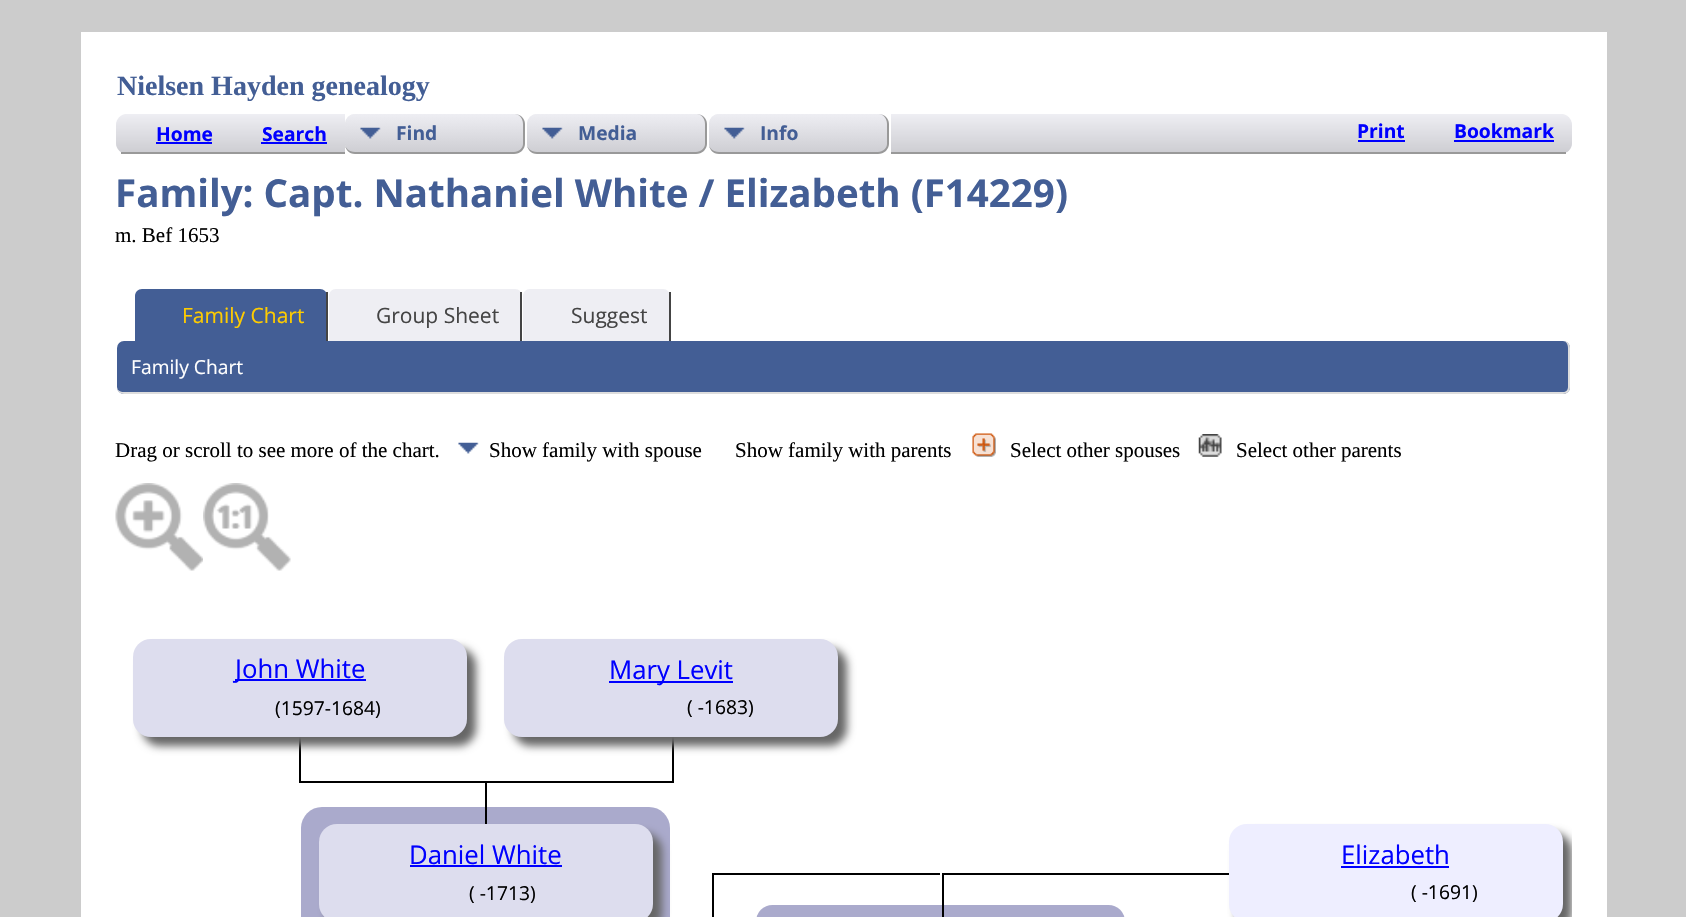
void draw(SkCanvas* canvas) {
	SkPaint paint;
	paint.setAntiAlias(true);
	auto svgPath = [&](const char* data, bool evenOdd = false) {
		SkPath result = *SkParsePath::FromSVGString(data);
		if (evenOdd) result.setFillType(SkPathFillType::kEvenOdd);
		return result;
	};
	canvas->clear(0xffcccccc);
	paint.setColor(0xffffffff);
	canvas->drawRect(SkRect::MakeXYWH(81, 32, 1526, 885), paint);
	SkFont f1(fontMgr->matchFamilyStyle("Liberation Serif", SkFontStyle::Bold()), 28);
	f1.setSubpixel(true);
	paint.setColor(0xff435e95);
	canvas->drawString("Nielsen Hayden genealogy", 117, 95, f1, paint);
	paint.setColor(0xffeeeef3);
	canvas->drawRoundRect(SkRect::MakeXYWH(116, 114, 1456, 40), 11, 11, paint);
	canvas->save();
	canvas->clipPath(svgPath("M127 114H1561C1567 114 1572 119 1572 125V143C1572 149 1567 154 1561 154H127C121 154 116 149 116 143V125C116 119 121 114 127 114Z"), true);
	{
		const SkColor colors[] = {0xffeeeef3, 0xffceced3};
		const float stops[] = {0, 1};
		const SkPoint ends[] = {{844, 114}, {844, 152}};
		paint.setShader(SkGradientShader::MakeLinear(ends, colors, stops, 2, SkTileMode::kClamp));
		paint.setAlpha(255);
	}
	canvas->drawPath(svgPath("M127 114H1561C1567 114 1572 119 1572 125V152H116V125C116 119 121 114 127 114Z"), paint);
	{
		const SkColor colors[] = {0xffeeeef3, 0xffceced3};
		const float stops[] = {0, 1};
		const SkPoint ends[] = {{844, 152}, {844, 191}};
		paint.setShader(SkGradientShader::MakeLinear(ends, colors, stops, 2, SkTileMode::kClamp));
		paint.setAlpha(255);
	}
	canvas->drawRect(SkRect::MakeXYWH(116, 152, 1456, 1), paint);
	canvas->restore();
	paint.setShader(nullptr);
	paint.setColor(0xff999999);
	canvas->drawRect(SkRect::MakeXYWH(121, 152, 1445, 2), paint);
	SkFont f2(fontMgr->matchFamilyStyle("Open Sans", SkFontStyle::Bold()), 19.25);
	f2.setSubpixel(true);
	paint.setColor(0xff0000ff);
	canvas->drawString("Home", 156, 141, f2, paint);
	canvas->drawRect(SkRect::MakeXYWH(156, 142, 56, 2), paint);
	canvas->drawString("Search", 262, 141, f2, paint);
	canvas->drawRect(SkRect::MakeXYWH(261, 142, 66, 2), paint);
	paint.setColor(0xffffffff);
	canvas->drawRect(SkRect::MakeXYWH(345, 114, 546, 40), paint);
	canvas->drawImageRect(SkImages::DeferredFromEncodedData(SkData::MakeFromFileName("img1.png")), SkRect::MakeXYWH(345, 114, 179, 39), SkSamplingOptions());
	paint.setColor(0xff999999);
	canvas->drawPath(svgPath("M355 114H514C520 114 525 118 525 124V144C525 149 520 154 514 154H355C349 154 345 149 345 144V124C345 118 349 114 355 114ZM355 114H514C519 114 523 118 523 124V144C523 148 519 152 514 152H355C349 152 345 148 345 144V124C345 118 349 114 355 114Z", true), paint);
	paint.setColor(0xff435e95);
	canvas->drawString("Find", 396, 140, f2, paint);
	canvas->drawImageRect(SkImages::DeferredFromEncodedData(SkData::MakeFromFileName("img2.png")), SkRect::MakeXYWH(527, 114, 179, 39), SkSamplingOptions());
	paint.setColor(0xff999999);
	canvas->drawPath(svgPath("M537 114H696C702 114 707 118 707 124V144C707 149 702 154 696 154H537C531 154 527 149 527 144V124C527 118 531 114 537 114ZM537 114H696C701 114 705 118 705 124V144C705 148 701 152 696 152H537C531 152 527 148 527 144V124C527 118 531 114 537 114Z", true), paint);
	paint.setColor(0xff435e95);
	canvas->drawString("Media", 578, 140, f2, paint);
	canvas->drawImageRect(SkImages::DeferredFromEncodedData(SkData::MakeFromFileName("img3.png")), SkRect::MakeXYWH(709, 114, 179, 39), SkSamplingOptions());
	paint.setColor(0xff999999);
	canvas->drawPath(svgPath("M719 114H878C884 114 889 118 889 124V144C889 149 884 154 878 154H719C713 154 709 149 709 144V124C709 118 713 114 719 114ZM719 114H878C883 114 887 118 887 124V144C887 148 883 152 878 152H719C713 152 709 148 709 144V124C709 118 713 114 719 114Z", true), paint);
	paint.setColor(0xff435e95);
	canvas->drawString("Info", 760, 140, f2, paint);
	paint.setColor(0xff0000ff);
	canvas->drawString("Print", 1357, 138, f2, paint);
	canvas->drawRect(SkRect::MakeXYWH(1358, 140, 47, 2), paint);
	canvas->drawString("Bookmark", 1454, 138, f2, paint);
	canvas->drawRect(SkRect::MakeXYWH(1454, 140, 100, 2), paint);
	SkFont f3(fontMgr->matchFamilyStyle("Open Sans", SkFontStyle::Bold()), 38.5);
	f3.setSubpixel(true);
	paint.setColor(0xff435e95);
	canvas->drawString("Family: Capt. Nathaniel White / Elizabeth (F14229)", 115, 207, f3, paint);
	SkFont f4(fontMgr->matchFamilyStyle("Liberation Serif", SkFontStyle::Normal()), 21);
	f4.setSubpixel(true);
	paint.setColor(0xff000000);
	canvas->drawString("m. Bef 1653", 115, 242, f4, paint);
	paint.setColor(0xff435e95);
	canvas->drawPath(svgPath("M142 289H320C324 289 327 292 327 296V341H135V296C135 292 138 289 142 289Z"), paint);
	paint.setColor(0xff444444);
	canvas->drawRect(SkRect::MakeXYWH(326, 292, 2, 49), paint);
	SkFont f5(fontMgr->matchFamilyStyle("Open Sans", SkFontStyle::Normal()), 21);
	f5.setSubpixel(true);
	paint.setColor(0xffffcc00);
	canvas->drawString("Family Chart", 182, 323, f5, paint);
	paint.setColor(0xffeeeef3);
	canvas->drawPath(svgPath("M336 289H515C519 289 522 292 522 296V341H329V296C329 292 332 289 336 289Z"), paint);
	paint.setColor(0xff444444);
	canvas->drawRect(SkRect::MakeXYWH(520, 292, 2, 49), paint);
	canvas->drawString("Group Sheet", 376, 323, f5, paint);
	paint.setColor(0xffeeeef3);
	canvas->drawPath(svgPath("M530 289H663C667 289 670 292 670 296V341H523V296C523 292 526 289 530 289Z"), paint);
	paint.setColor(0xff444444);
	canvas->drawRect(SkRect::MakeXYWH(669, 292, 2, 49), paint);
	canvas->drawString("Suggest", 571, 323, f5, paint);
	paint.setColor(0xff435e95);
	canvas->drawRoundRect(SkRect::MakeXYWH(117, 341, 1453, 53), 7, 7, paint);
	paint.setColor(0xffdddddd);
	canvas->drawPath(svgPath("M124 341H1563C1567 341 1570 344 1570 348V387C1570 391 1567 394 1563 394H124C120 394 117 391 117 387V348C117 344 120 341 124 341ZM124 341H1563C1566 341 1568 344 1568 348V387C1568 390 1566 392 1563 392H124C120 392 117 390 117 387V348C117 344 120 341 124 341Z", true), paint);
	SkFont f6(fontMgr->matchFamilyStyle("Open Sans", SkFontStyle::Normal()), 19.25);
	f6.setSubpixel(true);
	paint.setColor(0xffffffff);
	canvas->drawString("Family Chart", 131, 374, f6, paint);
	paint.setColor(0xff000000);
	canvas->drawString("Drag or scroll to see more of the chart.", 115, 457, f4, paint);
	canvas->drawImageRect(SkImages::DeferredFromEncodedData(SkData::MakeFromFileName("img4.png")), SkRect::MakeXYWH(458, 442, 21, 12), SkSamplingOptions());
	canvas->drawString("Show family with spouse", 489, 457, f4, paint);
	canvas->drawString("Show family with parents", 735, 457, f4, paint);
	canvas->drawImageRect(SkImages::DeferredFromEncodedData(SkData::MakeFromFileName("img5.png")), SkRect::MakeXYWH(972, 433, 24, 24), SkSamplingOptions());
	canvas->drawString("Select other spouses", 1010, 457, f4, paint);
	canvas->drawImageRect(SkImages::DeferredFromEncodedData(SkData::MakeFromFileName("img6.png")), SkRect::MakeXYWH(1198, 434, 24, 23), SkSamplingOptions());
	canvas->drawString("Select other parents", 1236, 457, f4, paint);
	canvas->drawImageRect(SkImages::DeferredFromEncodedData(SkData::MakeFromFileName("img7.png")), SkRect::MakeXYWH(115, 483, 88, 88), SkSamplingOptions());
	canvas->drawImageRect(SkImages::DeferredFromEncodedData(SkData::MakeFromFileName("img8.png")), SkRect::MakeXYWH(203, 483, 88, 88), SkSamplingOptions());
	canvas->drawRect(SkRect::MakeXYWH(672, 737, 2, 45), paint);
	canvas->drawRect(SkRect::MakeXYWH(299, 781, 375, 2), paint);
	canvas->drawRect(SkRect::MakeXYWH(299, 737, 2, 45), paint);
	paint.setColor(0xff666666);
	paint.setMaskFilter(SkMaskFilter::MakeBlur(kNormal_SkBlurStyle, 4.5));
	canvas->drawRoundRect(SkRect::MakeXYWH(142, 648, 334, 98), 18, 18, paint);
	paint.setMaskFilter(nullptr);
	paint.setColor(0xffddddee);
	canvas->drawRoundRect(SkRect::MakeXYWH(133, 639, 334, 98), 18, 18, paint);
	paint.setColor(0xff0000ff);
	canvas->drawRect(SkRect::MakeXYWH(235, 679, 131, 2), paint);
	SkFont f7(fontMgr->matchFamilyStyle("Open Sans", SkFontStyle::Normal()), 25.75);
	f7.setSubpixel(true);
	canvas->drawString("John White", 235, 678, f7, paint);
	paint.setColor(0xff000000);
	canvas->drawString("(1597-1684)", 275, 715, f6, paint);
	paint.setColor(0xff666666);
	paint.setMaskFilter(SkMaskFilter::MakeBlur(kNormal_SkBlurStyle, 4.5));
	canvas->drawRoundRect(SkRect::MakeXYWH(513, 648, 334, 98), 18, 18, paint);
	paint.setMaskFilter(nullptr);
	paint.setColor(0xffddddee);
	canvas->drawRoundRect(SkRect::MakeXYWH(504, 639, 334, 98), 18, 18, paint);
	paint.setColor(0xff0000ff);
	canvas->drawRect(SkRect::MakeXYWH(609, 681, 124, 2), paint);
	canvas->drawString("Mary Levit", 609, 679, f7, paint);
	paint.setColor(0xff000000);
	canvas->drawString("( -1683)", 687, 714, f6, paint);
	paint.setColor(0xffaaaacc);
	canvas->drawRoundRect(SkRect::MakeXYWH(301, 807, 369, 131), 21, 21, paint);
	paint.setColor(0xff000000);
	canvas->drawRect(SkRect::MakeXYWH(485, 781, 2, 43), paint);
	paint.setColor(0xff666666);
	paint.setMaskFilter(SkMaskFilter::MakeBlur(kNormal_SkBlurStyle, 4.5));
	canvas->drawRoundRect(SkRect::MakeXYWH(327, 833, 335, 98), 18, 18, paint);
	paint.setMaskFilter(nullptr);
	paint.setColor(0xffddddee);
	canvas->drawRoundRect(SkRect::MakeXYWH(319, 824, 334, 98), 18, 18, paint);
	paint.setColor(0xff0000ff);
	canvas->drawString("Daniel White", 409, 864, f7, paint);
	canvas->drawRect(SkRect::MakeXYWH(410, 865, 152, 2), paint);
	paint.setColor(0xff000000);
	canvas->drawString("( -1713)", 469, 900, f6, paint);
	canvas->drawRect(SkRect::MakeXYWH(712, 873, 2, 44), paint);
	canvas->drawRect(SkRect::MakeXYWH(942, 873, 288, 2), paint);
	canvas->save();
	canvas->clipRect(SkRect::MakeXYWH(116, 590, 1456, 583));
	paint.setColor(0xff666666);
	paint.setMaskFilter(SkMaskFilter::MakeBlur(kNormal_SkBlurStyle, 4.5));
	canvas->drawRoundRect(SkRect::MakeXYWH(1237, 833, 335, 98), 18, 18, paint);
	paint.setMaskFilter(nullptr);
	canvas->restore();
	paint.setColor(0xffeeeeff);
	canvas->drawRoundRect(SkRect::MakeXYWH(1229, 824, 334, 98), 18, 18, paint);
	paint.setColor(0xff0000ff);
	canvas->drawString("Elizabeth", 1341, 864, f7, paint);
	canvas->drawRect(SkRect::MakeXYWH(1341, 866, 108, 2), paint);
	paint.setColor(0xff000000);
	canvas->drawString("( -1691)", 1411, 899, f6, paint);
	canvas->drawRect(SkRect::MakeXYWH(712, 873, 228, 2), paint);
	paint.setColor(0xffaaaacc);
	canvas->drawRoundRect(SkRect::MakeXYWH(756, 905, 369, 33), 21, 21, paint);
	paint.setColor(0xff000000);
	canvas->drawRect(SkRect::MakeXYWH(942, 873, 2, 44), paint);
}
